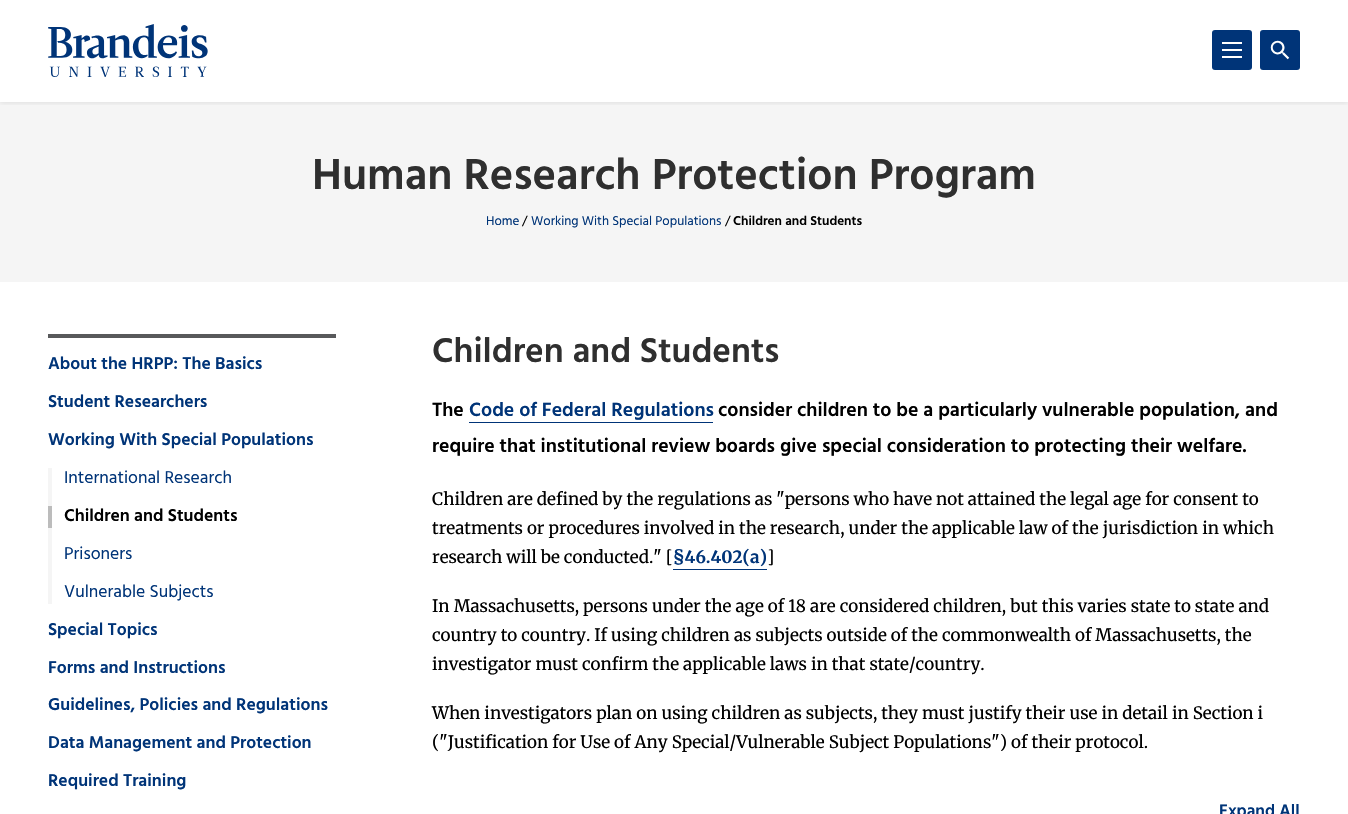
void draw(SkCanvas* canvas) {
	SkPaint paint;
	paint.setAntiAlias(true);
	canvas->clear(0xffffffff);
	paint.setColor(0xfff5f5f5);
	canvas->drawRect(SkRect::MakeXYWH(0, 102, 1348, 180), paint);
	canvas->save();
	canvas->clipRect(SkRect::MakeXYWH(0, 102, 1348, 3));
	paint.setColor(0x1f000000);
	paint.setMaskFilter(SkMaskFilter::MakeBlur(kNormal_SkBlurStyle, 3));
	canvas->drawRect(SkRect::MakeXYWH(0, 0, 1348, 102), paint);
	paint.setMaskFilter(nullptr);
	canvas->restore();
	canvas->drawImageRect(SkImages::DeferredFromEncodedData(SkData::MakeFromFileName("img1.png")), SkRect::MakeXYWH(48, 24, 160, 53), SkSamplingOptions());
	paint.setColor(0xff003478);
	canvas->drawRoundRect(SkRect::MakeXYWH(1212, 30, 40, 40), 3, 3, paint);
	canvas->drawImageRect(SkImages::DeferredFromEncodedData(SkData::MakeFromFileName("img2.png")), SkRect::MakeXYWH(1222, 42, 20, 16), SkSamplingOptions());
	canvas->drawRoundRect(SkRect::MakeXYWH(1260, 30, 40, 40), 3, 3, paint);
	canvas->drawImageRect(SkImages::DeferredFromEncodedData(SkData::MakeFromFileName("img3.png")), SkRect::MakeXYWH(1270, 40, 20, 20), SkSamplingOptions());
	SkFont f1(fontMgr->matchFamilyStyle("Hind", SkFontStyle(600, SkFontStyle::kNormal_Width, SkFontStyle::kUpright_Slant)), 44.6);
	f1.setSubpixel(true);
	paint.setColor(0xff2f2f2f);
	canvas->drawString("Human Research Protection Program", 312, 189, f1, paint);
	SkFont f2(fontMgr->matchFamilyStyle("Hind", SkFontStyle::Normal()), 13.1);
	f2.setSubpixel(true);
	paint.setColor(0xff003478);
	canvas->drawString("Home", 486, 225, f2, paint);
	paint.setColor(0xff000000);
	canvas->drawString("/", 522, 225, f2, paint);
	paint.setColor(0xff003478);
	canvas->drawString("Working With Special Populations", 531, 225, f2, paint);
	paint.setColor(0xff000000);
	canvas->drawString("/", 725, 225, f2, paint);
	SkFont f3(fontMgr->matchFamilyStyle("Hind", SkFontStyle(600, SkFontStyle::kNormal_Width, SkFontStyle::kUpright_Slant)), 13.1);
	f3.setSubpixel(true);
	canvas->drawString("Children and Students", 733, 225, f3, paint);
	paint.setColor(0xff58595b);
	canvas->drawRect(SkRect::MakeXYWH(48, 334, 288, 4), paint);
	SkFont f4(fontMgr->matchFamilyStyle("Hind", SkFontStyle(600, SkFontStyle::kNormal_Width, SkFontStyle::kUpright_Slant)), 17.6);
	f4.setSubpixel(true);
	paint.setColor(0xff003478);
	canvas->drawString("About the HRPP: The Basics", 48, 369, f4, paint);
	canvas->drawString("Student Researchers", 48, 407, f4, paint);
	canvas->drawString("Working With Special Populations", 48, 445, f4, paint);
	paint.setColor(0xfff5f5f5);
	canvas->drawRect(SkRect::MakeXYWH(48, 468, 4, 136), paint);
	SkFont f5(fontMgr->matchFamilyStyle("Hind", SkFontStyle::Normal()), 17.6);
	f5.setSubpixel(true);
	paint.setColor(0xff003478);
	canvas->drawString("International Research", 64, 483, f5, paint);
	paint.setColor(0xffbcbcbc);
	canvas->drawRect(SkRect::MakeXYWH(48, 506, 4, 22), paint);
	paint.setColor(0xff000000);
	canvas->drawString("Children and Students", 64, 521, f4, paint);
	paint.setColor(0xff003478);
	canvas->drawString("Prisoners", 64, 559, f5, paint);
	canvas->drawString("Vulnerable Subjects", 64, 597, f5, paint);
	canvas->drawString("Special Topics", 48, 635, f4, paint);
	canvas->drawString("Forms and Instructions", 48, 673, f4, paint);
	canvas->drawString("Guidelines, Policies and Regulations", 48, 710, f4, paint);
	canvas->drawString("Data Management and Protection", 48, 748, f4, paint);
	canvas->drawString("Required Training", 48, 786, f4, paint);
	SkFont f6(fontMgr->matchFamilyStyle("Hind", SkFontStyle(600, SkFontStyle::kNormal_Width, SkFontStyle::kUpright_Slant)), 35.25);
	f6.setSubpixel(true);
	paint.setColor(0xff2f2f2f);
	canvas->drawString("Children and Students", 432, 362, f6, paint);
	SkFont f7(fontMgr->matchFamilyStyle("Hind", SkFontStyle(600, SkFontStyle::kNormal_Width, SkFontStyle::kUpright_Slant)), 19.7);
	f7.setSubpixel(true);
	paint.setColor(0xff000000);
	canvas->drawString("The", 432, 416, f7, paint);
	paint.setColor(0xff003478);
	canvas->drawString("Code of Federal Regulations", 469, 416, f7, paint);
	canvas->drawRect(SkRect::MakeXYWH(469, 422, 244, 1), paint);
	paint.setColor(0xff000000);
	canvas->drawString("consider children to be a particularly vulnerable population, and", 718, 416, f7, paint);
	canvas->drawString("require that institutional review boards give special consideration to protecting their welfare.", 432, 452, f7, paint);
	SkFont f8(fontMgr->matchFamilyStyle("Merriweather", SkFontStyle::Normal()), 17);
	f8.setSubpixel(true);
	canvas->drawString("Children are defined by the regulations as \"persons who have not attained the legal age for consent to", 432, 505, f8, paint);
	canvas->drawString("treatments or procedures involved in the research, under the applicable law of the jurisdiction in which", 432, 534, f8, paint);
	canvas->drawString("research will be conducted.\" [", 432, 563, f8, paint);
	SkFont f9(fontMgr->matchFamilyStyle("Merriweather", SkFontStyle::Bold()), 17);
	f9.setSubpixel(true);
	paint.setColor(0xff003478);
	canvas->drawString("§46.402(a)", 673, 563, f9, paint);
	canvas->drawRect(SkRect::MakeXYWH(673, 569, 94, 1), paint);
	paint.setColor(0xff000000);
	canvas->drawString("]", 767, 563, f8, paint);
	canvas->drawString("In Massachusetts, persons under the age of 18 are considered children, but this varies state to state and", 432, 612, f8, paint);
	canvas->drawString("country to country. If using children as subjects outside of the commonwealth of Massachusetts, the", 432, 641, f8, paint);
	canvas->drawString("investigator must confirm the applicable laws in that state/country.", 432, 670, f8, paint);
	canvas->drawString("When investigators plan on using children as subjects, they must justify their use in detail in Section i", 432, 719, f8, paint);
	canvas->drawString("(\"Justification for Use of Any Special/Vulnerable Subject Populations\") of their protocol.", 432, 748, f8, paint);
	SkFont f10(fontMgr->matchFamilyStyle("Hind", SkFontStyle(600, SkFontStyle::kNormal_Width, SkFontStyle::kUpright_Slant)), 17);
	f10.setSubpixel(true);
	paint.setColor(0xff003478);
	canvas->drawString("Expand All", 1219, 816, f10, paint);
}
